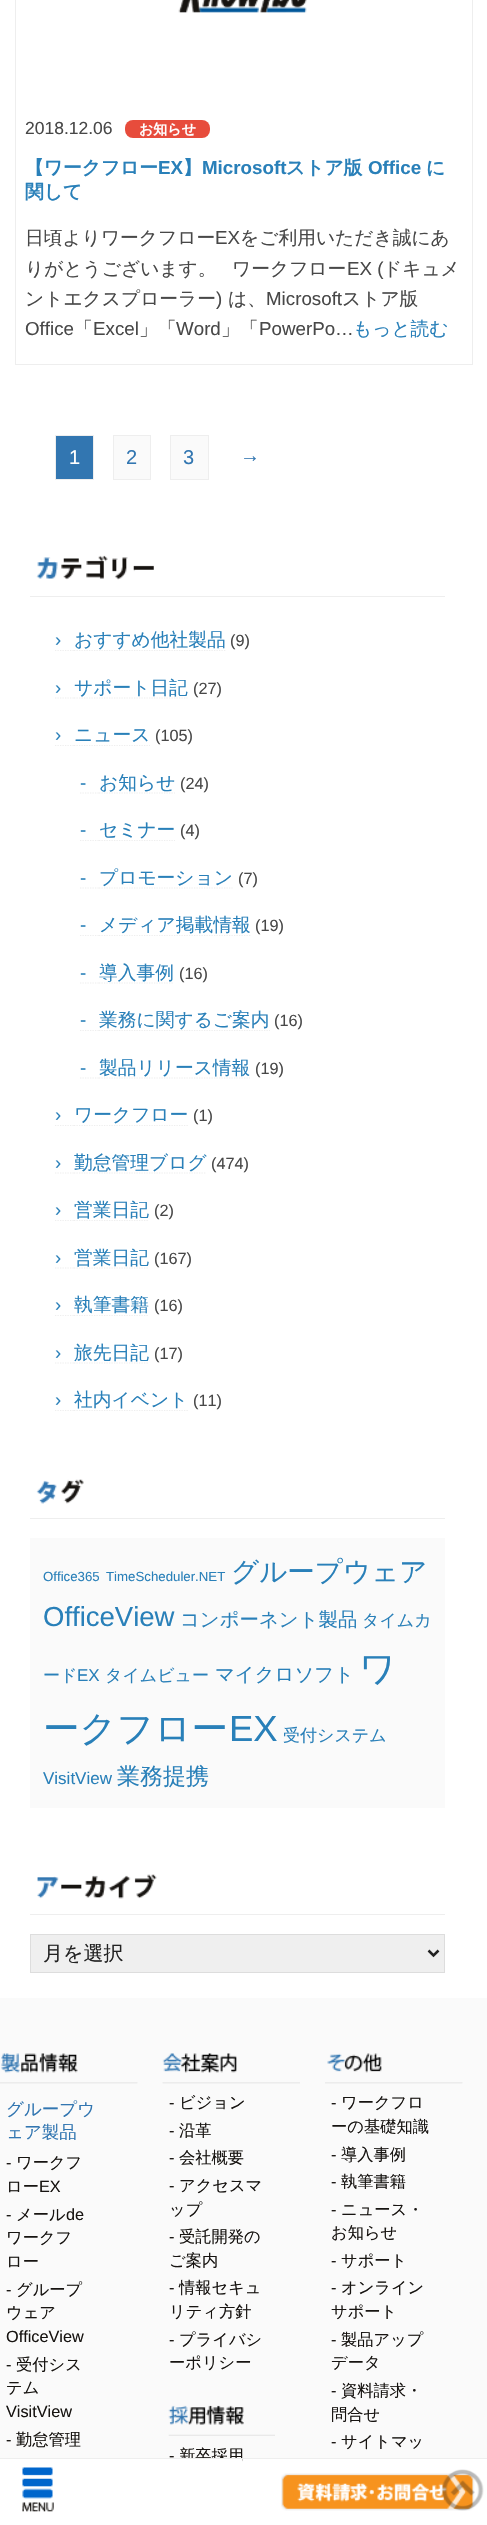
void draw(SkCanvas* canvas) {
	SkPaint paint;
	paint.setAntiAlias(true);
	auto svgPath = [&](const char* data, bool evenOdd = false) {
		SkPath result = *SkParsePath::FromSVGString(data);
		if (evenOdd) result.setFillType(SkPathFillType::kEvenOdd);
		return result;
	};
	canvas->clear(0xffffffff);
	paint.setStroke(true);
	paint.setStrokeWidth(1);
	paint.setColor(0xffeeeeee);
	canvas->drawRect(SkRect::MakeXYWH(15.5, -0.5, 457, 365), paint);
	canvas->drawImageRect(SkImages::DeferredFromEncodedData(SkData::MakeFromFileName("img1.png")), SkRect::MakeXYWH(178, 0, 129, 13), SkSamplingOptions());
	SkFont f1(fontMgr->matchFamilyStyle("Liberation Sans", SkFontStyle::Normal()), 17.5);
	f1.setSubpixel(true);
	paint.setStroke(false);
	paint.setColor(0xff484848);
	canvas->drawString("2018.12.06", 25, 134, f1, paint);
	paint.setColor(0xffe74c3c);
	canvas->drawRoundRect(SkRect::MakeXYWH(125, 120, 85, 18), 8, 8, paint);
	SkFont f2(fontMgr->matchFamilyStyle("WenQuanYi Zen Hei", SkFontStyle::Bold()), 14);
	f2.setSubpixel(true);
	paint.setColor(0xffffffff);
	canvas->drawString("お知らせ", 139, 134, f2, paint);
	SkFont f3(fontMgr->matchFamilyStyle("WenQuanYi Zen Hei", SkFontStyle::Bold()), 18.75);
	f3.setSubpixel(true);
	paint.setColor(0xff2980b9);
	canvas->drawString("【ワークフロー", 25, 174, f3, paint);
	SkFont f4(fontMgr->matchFamilyStyle("Liberation Sans", SkFontStyle::Bold()), 18.75);
	f4.setSubpixel(true);
	canvas->drawString("EX", 158, 174, f4, paint);
	canvas->drawString("】", 183, 174, f3, paint);
	canvas->drawString("Microsoft", 202, 174, f4, paint);
	canvas->drawString("ストア版", 286, 174, f3, paint);
	canvas->drawString("Office", 368, 174, f4, paint);
	canvas->drawString("に", 426, 174, f3, paint);
	canvas->drawString("関して", 25, 198, f3, paint);
	SkFont f5(fontMgr->matchFamilyStyle("WenQuanYi Zen Hei", SkFontStyle(500, SkFontStyle::kNormal_Width, SkFontStyle::kUpright_Slant)), 18.75);
	f5.setSubpixel(true);
	paint.setColor(0xff484848);
	canvas->drawString("日頃よりワークフロー", 25, 244, f5, paint);
	SkFont f6(fontMgr->matchFamilyStyle("Liberation Sans", SkFontStyle::Normal()), 18.75);
	f6.setSubpixel(true);
	canvas->drawString("EX", 215, 244, f6, paint);
	canvas->drawString("をご利用いただき誠にあ", 240, 244, f5, paint);
	canvas->drawString("りがとうございます。", 25, 275, f5, paint);
	canvas->drawString("ワークフロー", 232, 275, f5, paint);
	canvas->drawString("EX (", 347, 275, f6, paint);
	canvas->drawString("ドキュメ", 383, 275, f5, paint);
	canvas->drawString("ントエクスプローラー", 25, 305, f5, paint);
	canvas->drawString(")", 216, 305, f6, paint);
	canvas->drawString("は、", 228, 305, f5, paint);
	canvas->drawString("Microsoft", 266, 305, f6, paint);
	canvas->drawString("ストア版", 342, 305, f5, paint);
	canvas->drawString("Office", 25, 335, f6, paint);
	canvas->drawString("「", 74, 335, f5, paint);
	canvas->drawString("Excel", 93, 335, f6, paint);
	canvas->drawString("」「", 139, 335, f5, paint);
	canvas->drawString("Word", 176, 335, f6, paint);
	canvas->drawString("」「", 221, 335, f5, paint);
	canvas->drawString("PowerPo…", 259, 335, f6, paint);
	paint.setColor(0xff2980b9);
	canvas->drawString("もっと読む", 353, 335, f5, paint);
	paint.setColor(0xff3276b1);
	canvas->drawRect(SkRect::MakeXYWH(55.5, 435.5, 38, 44), paint);
	paint.setStroke(true);
	paint.setColor(0xffeeeeee);
	canvas->drawRect(SkRect::MakeXYWH(55.5, 435.5, 38, 44), paint);
	SkFont f7(fontMgr->matchFamilyStyle("Liberation Sans", SkFontStyle::Normal()), 20);
	f7.setSubpixel(true);
	paint.setStroke(false);
	paint.setColor(0xffffffff);
	canvas->drawString("1", 69, 464, f7, paint);
	paint.setColor(0xfffafafa);
	canvas->drawRect(SkRect::MakeXYWH(113.5, 435.5, 37, 44), paint);
	paint.setStroke(true);
	paint.setColor(0xffeeeeee);
	canvas->drawRect(SkRect::MakeXYWH(113.5, 435.5, 37, 44), paint);
	paint.setStroke(false);
	paint.setColor(0xff3276b1);
	canvas->drawString("2", 126, 464, f7, paint);
	paint.setColor(0xfffafafa);
	canvas->drawRect(SkRect::MakeXYWH(170.5, 435.5, 38, 44), paint);
	paint.setStroke(true);
	paint.setColor(0xffeeeeee);
	canvas->drawRect(SkRect::MakeXYWH(170.5, 435.5, 38, 44), paint);
	paint.setStroke(false);
	paint.setColor(0xff3276b1);
	canvas->drawString("3", 183, 464, f7, paint);
	canvas->drawString("→", 240, 462, f7, paint);
	canvas->drawImageRect(SkImages::DeferredFromEncodedData(SkData::MakeFromFileName("img2.png")), SkRect::MakeXYWH(36, 555, 118, 25), SkSamplingOptions());
	paint.setColor(0xffeeeeee);
	canvas->drawRect(SkRect::MakeXYWH(30, 596, 415, 1), paint);
	paint.setColor(0xff2980b9);
	canvas->drawString("›", 55, 646, f6, paint);
	paint.setStroke(true);
	paint.setStrokeWidth(1.2);
	paint.setColor(0xffeeeeee);
	paint.setPathEffect(SkDashPathEffect::Make({{1.25f, 1.25f}}, 0));
	canvas->drawPath(svgPath("M55 650.5H74"), paint);
	paint.setPathEffect(nullptr);
	paint.setPathEffect(SkDashPathEffect::Make({{1.25f, 1.25f}}, 0));
	canvas->drawPath(svgPath("M74 650.5H226"), paint);
	paint.setPathEffect(nullptr);
	paint.setStroke(false);
	paint.setColor(0xff2980b9);
	canvas->drawString("おすすめ他社製品", 74, 646, f5, paint);
	SkFont f8(fontMgr->matchFamilyStyle("Liberation Sans", SkFontStyle::Normal()), 16.25);
	f8.setSubpixel(true);
	paint.setColor(0xff484848);
	canvas->drawString("(9)", 230, 646, f8, paint);
	paint.setColor(0xff2980b9);
	canvas->drawString("›", 55, 694, f6, paint);
	paint.setStroke(true);
	paint.setColor(0xffeeeeee);
	paint.setPathEffect(SkDashPathEffect::Make({{1.25f, 1.25f}}, 0));
	canvas->drawPath(svgPath("M55 698H74"), paint);
	paint.setPathEffect(nullptr);
	paint.setStroke(false);
	paint.setColor(0xff2980b9);
	canvas->drawString("サポート日記", 74, 694, f5, paint);
	paint.setStroke(true);
	paint.setColor(0xffeeeeee);
	paint.setPathEffect(SkDashPathEffect::Make({{1.25f, 1.25f}}, 0));
	canvas->drawPath(svgPath("M74 698H187.5"), paint);
	paint.setPathEffect(nullptr);
	paint.setStroke(false);
	paint.setColor(0xff484848);
	canvas->drawString("(27)", 193, 694, f8, paint);
	paint.setColor(0xff2980b9);
	canvas->drawString("›", 55, 741, f6, paint);
	paint.setStroke(true);
	paint.setColor(0xffeeeeee);
	paint.setPathEffect(SkDashPathEffect::Make({{1.25f, 1.25f}}, 0));
	canvas->drawPath(svgPath("M55 745.5H74"), paint);
	paint.setPathEffect(nullptr);
	paint.setStroke(false);
	paint.setColor(0xff2980b9);
	canvas->drawString("ニュース", 74, 741, f5, paint);
	paint.setStroke(true);
	paint.setColor(0xffeeeeee);
	paint.setPathEffect(SkDashPathEffect::Make({{1.25f, 1.25f}}, 0));
	canvas->drawPath(svgPath("M74 745.5H150"), paint);
	paint.setPathEffect(nullptr);
	paint.setStroke(false);
	paint.setColor(0xff484848);
	canvas->drawString("(105)", 155, 741, f8, paint);
	paint.setColor(0xff2980b9);
	canvas->drawString("-", 80, 789, f6, paint);
	paint.setStroke(true);
	paint.setColor(0xffeeeeee);
	paint.setPathEffect(SkDashPathEffect::Make({{1.25f, 1.25f}}, 0));
	canvas->drawPath(svgPath("M80 793H99"), paint);
	paint.setPathEffect(nullptr);
	paint.setStroke(false);
	paint.setColor(0xff2980b9);
	canvas->drawString("お知らせ", 99, 789, f5, paint);
	paint.setStroke(true);
	paint.setColor(0xffeeeeee);
	paint.setPathEffect(SkDashPathEffect::Make({{1.25f, 1.25f}}, 0));
	canvas->drawPath(svgPath("M99 793H175"), paint);
	paint.setPathEffect(nullptr);
	paint.setStroke(false);
	paint.setColor(0xff484848);
	canvas->drawString("(24)", 180, 789, f8, paint);
	paint.setColor(0xff2980b9);
	canvas->drawString("-", 80, 836, f6, paint);
	paint.setStroke(true);
	paint.setColor(0xffeeeeee);
	paint.setPathEffect(SkDashPathEffect::Make({{1.25f, 1.25f}}, 0));
	canvas->drawPath(svgPath("M80 840.5H99"), paint);
	paint.setPathEffect(nullptr);
	paint.setStroke(false);
	paint.setColor(0xff2980b9);
	canvas->drawString("セミナー", 99, 836, f5, paint);
	paint.setStroke(true);
	paint.setColor(0xffeeeeee);
	paint.setPathEffect(SkDashPathEffect::Make({{1.25f, 1.25f}}, 0));
	canvas->drawPath(svgPath("M99 840.5H175"), paint);
	paint.setPathEffect(nullptr);
	paint.setStroke(false);
	paint.setColor(0xff484848);
	canvas->drawString("(4)", 180, 836, f8, paint);
	paint.setColor(0xff2980b9);
	canvas->drawString("-", 80, 884, f6, paint);
	paint.setStroke(true);
	paint.setColor(0xffeeeeee);
	paint.setPathEffect(SkDashPathEffect::Make({{1.25f, 1.25f}}, 0));
	canvas->drawPath(svgPath("M80 888H99"), paint);
	paint.setPathEffect(nullptr);
	paint.setStroke(false);
	paint.setColor(0xff2980b9);
	canvas->drawString("プロモーション", 99, 884, f5, paint);
	paint.setStroke(true);
	paint.setColor(0xffeeeeee);
	paint.setPathEffect(SkDashPathEffect::Make({{1.25f, 1.25f}}, 0));
	canvas->drawPath(svgPath("M99 888H232.5"), paint);
	paint.setPathEffect(nullptr);
	paint.setStroke(false);
	paint.setColor(0xff484848);
	canvas->drawString("(7)", 238, 884, f8, paint);
	paint.setColor(0xff2980b9);
	canvas->drawString("-", 80, 931, f6, paint);
	paint.setStroke(true);
	paint.setColor(0xffeeeeee);
	paint.setPathEffect(SkDashPathEffect::Make({{1.25f, 1.25f}}, 0));
	canvas->drawPath(svgPath("M80 935.5H99"), paint);
	paint.setPathEffect(nullptr);
	paint.setStroke(false);
	paint.setColor(0xff2980b9);
	canvas->drawString("メディア掲載情報", 99, 931, f5, paint);
	paint.setStroke(true);
	paint.setColor(0xffeeeeee);
	paint.setPathEffect(SkDashPathEffect::Make({{1.25f, 1.25f}}, 0));
	canvas->drawPath(svgPath("M99 935.5H251"), paint);
	paint.setPathEffect(nullptr);
	paint.setStroke(false);
	paint.setColor(0xff484848);
	canvas->drawString("(19)", 255, 931, f8, paint);
	paint.setColor(0xff2980b9);
	canvas->drawString("-", 80, 979, f6, paint);
	paint.setStroke(true);
	paint.setColor(0xffeeeeee);
	paint.setPathEffect(SkDashPathEffect::Make({{1.25f, 1.25f}}, 0));
	canvas->drawPath(svgPath("M80 983H99"), paint);
	paint.setPathEffect(nullptr);
	paint.setStroke(false);
	paint.setColor(0xff2980b9);
	canvas->drawString("導入事例", 99, 979, f5, paint);
	paint.setStroke(true);
	paint.setColor(0xffeeeeee);
	paint.setPathEffect(SkDashPathEffect::Make({{1.25f, 1.25f}}, 0));
	canvas->drawPath(svgPath("M99 983H174"), paint);
	paint.setPathEffect(nullptr);
	paint.setStroke(false);
	paint.setColor(0xff484848);
	canvas->drawString("(16)", 179, 979, f8, paint);
	paint.setColor(0xff2980b9);
	canvas->drawString("-", 80, 1026, f6, paint);
	paint.setStroke(true);
	paint.setColor(0xffeeeeee);
	paint.setPathEffect(SkDashPathEffect::Make({{1.25f, 1.25f}}, 0));
	canvas->drawPath(svgPath("M80 1030.5H99"), paint);
	paint.setPathEffect(nullptr);
	paint.setPathEffect(SkDashPathEffect::Make({{1.25f, 1.25f}}, 0));
	canvas->drawPath(svgPath("M99 1030.5H270"), paint);
	paint.setPathEffect(nullptr);
	paint.setStroke(false);
	paint.setColor(0xff2980b9);
	canvas->drawString("業務に関するご案内", 99, 1026, f5, paint);
	paint.setColor(0xff484848);
	canvas->drawString("(16)", 274, 1026, f8, paint);
	paint.setColor(0xff2980b9);
	canvas->drawString("-", 80, 1074, f6, paint);
	paint.setStroke(true);
	paint.setColor(0xffeeeeee);
	paint.setPathEffect(SkDashPathEffect::Make({{1.25f, 1.25f}}, 0));
	canvas->drawPath(svgPath("M80 1078H99"), paint);
	paint.setPathEffect(nullptr);
	paint.setStroke(false);
	paint.setColor(0xff2980b9);
	canvas->drawString("製品リリース情報", 99, 1074, f5, paint);
	paint.setStroke(true);
	paint.setColor(0xffeeeeee);
	paint.setPathEffect(SkDashPathEffect::Make({{1.25f, 1.25f}}, 0));
	canvas->drawPath(svgPath("M99 1078H250"), paint);
	paint.setPathEffect(nullptr);
	paint.setStroke(false);
	paint.setColor(0xff484848);
	canvas->drawString("(19)", 255, 1074, f8, paint);
	paint.setColor(0xff2980b9);
	canvas->drawString("›", 55, 1121, f6, paint);
	paint.setStroke(true);
	paint.setColor(0xffeeeeee);
	paint.setPathEffect(SkDashPathEffect::Make({{1.25f, 1.25f}}, 0));
	canvas->drawPath(svgPath("M55 1125.5H74"), paint);
	paint.setPathEffect(nullptr);
	paint.setStroke(false);
	paint.setColor(0xff2980b9);
	canvas->drawString("ワークフロー", 74, 1121, f5, paint);
	paint.setStroke(true);
	paint.setColor(0xffeeeeee);
	paint.setPathEffect(SkDashPathEffect::Make({{1.25f, 1.25f}}, 0));
	canvas->drawPath(svgPath("M74 1125.5H189"), paint);
	paint.setPathEffect(nullptr);
	paint.setStroke(false);
	paint.setColor(0xff484848);
	canvas->drawString("(1)", 193, 1121, f8, paint);
	paint.setColor(0xff2980b9);
	canvas->drawString("›", 55, 1169, f6, paint);
	paint.setStroke(true);
	paint.setColor(0xffeeeeee);
	paint.setPathEffect(SkDashPathEffect::Make({{1.25f, 1.25f}}, 0));
	canvas->drawPath(svgPath("M55 1173H74"), paint);
	paint.setPathEffect(nullptr);
	paint.setStroke(false);
	paint.setColor(0xff2980b9);
	canvas->drawString("勤怠管理ブログ", 74, 1169, f5, paint);
	paint.setStroke(true);
	paint.setColor(0xffeeeeee);
	paint.setPathEffect(SkDashPathEffect::Make({{1.25f, 1.25f}}, 0));
	canvas->drawPath(svgPath("M74 1173H206"), paint);
	paint.setPathEffect(nullptr);
	paint.setStroke(false);
	paint.setColor(0xff484848);
	canvas->drawString("(474)", 211, 1169, f8, paint);
	paint.setColor(0xff2980b9);
	canvas->drawString("›", 55, 1216, f6, paint);
	paint.setStroke(true);
	paint.setColor(0xffeeeeee);
	paint.setPathEffect(SkDashPathEffect::Make({{1.25f, 1.25f}}, 0));
	canvas->drawPath(svgPath("M55 1220.5H74"), paint);
	paint.setPathEffect(nullptr);
	paint.setStroke(false);
	paint.setColor(0xff2980b9);
	canvas->drawString("営業日記", 74, 1216, f5, paint);
	paint.setStroke(true);
	paint.setColor(0xffeeeeee);
	paint.setPathEffect(SkDashPathEffect::Make({{1.25f, 1.25f}}, 0));
	canvas->drawPath(svgPath("M74 1220.5H149"), paint);
	paint.setPathEffect(nullptr);
	paint.setStroke(false);
	paint.setColor(0xff484848);
	canvas->drawString("(2)", 154, 1216, f8, paint);
	paint.setColor(0xff2980b9);
	canvas->drawString("›", 55, 1264, f6, paint);
	paint.setStroke(true);
	paint.setColor(0xffeeeeee);
	paint.setPathEffect(SkDashPathEffect::Make({{1.25f, 1.25f}}, 0));
	canvas->drawPath(svgPath("M55 1268H74"), paint);
	paint.setPathEffect(nullptr);
	paint.setStroke(false);
	paint.setColor(0xff2980b9);
	canvas->drawString("営業日記", 74, 1264, f5, paint);
	paint.setStroke(true);
	paint.setColor(0xffeeeeee);
	paint.setPathEffect(SkDashPathEffect::Make({{1.25f, 1.25f}}, 0));
	canvas->drawPath(svgPath("M74 1268H149"), paint);
	paint.setPathEffect(nullptr);
	paint.setStroke(false);
	paint.setColor(0xff484848);
	canvas->drawString("(167)", 154, 1264, f8, paint);
	paint.setColor(0xff2980b9);
	canvas->drawString("›", 55, 1311, f6, paint);
	paint.setStroke(true);
	paint.setColor(0xffeeeeee);
	paint.setPathEffect(SkDashPathEffect::Make({{1.25f, 1.25f}}, 0));
	canvas->drawPath(svgPath("M55 1315.5H74"), paint);
	paint.setPathEffect(nullptr);
	paint.setStroke(false);
	paint.setColor(0xff2980b9);
	canvas->drawString("執筆書籍", 74, 1311, f5, paint);
	paint.setStroke(true);
	paint.setColor(0xffeeeeee);
	paint.setPathEffect(SkDashPathEffect::Make({{1.25f, 1.25f}}, 0));
	canvas->drawPath(svgPath("M74 1315.5H149"), paint);
	paint.setPathEffect(nullptr);
	paint.setStroke(false);
	paint.setColor(0xff484848);
	canvas->drawString("(16)", 154, 1311, f8, paint);
	paint.setColor(0xff2980b9);
	canvas->drawString("›", 55, 1359, f6, paint);
	paint.setStroke(true);
	paint.setColor(0xffeeeeee);
	paint.setPathEffect(SkDashPathEffect::Make({{1.25f, 1.25f}}, 0));
	canvas->drawPath(svgPath("M55 1363H74"), paint);
	paint.setPathEffect(nullptr);
	paint.setStroke(false);
	paint.setColor(0xff2980b9);
	canvas->drawString("旅先日記", 74, 1359, f5, paint);
	paint.setStroke(true);
	paint.setColor(0xffeeeeee);
	paint.setPathEffect(SkDashPathEffect::Make({{1.25f, 1.25f}}, 0));
	canvas->drawPath(svgPath("M74 1363H149"), paint);
	paint.setPathEffect(nullptr);
	paint.setStroke(false);
	paint.setColor(0xff484848);
	canvas->drawString("(17)", 154, 1359, f8, paint);
	paint.setColor(0xff2980b9);
	canvas->drawString("›", 55, 1406, f6, paint);
	paint.setStroke(true);
	paint.setColor(0xffeeeeee);
	paint.setPathEffect(SkDashPathEffect::Make({{1.25f, 1.25f}}, 0));
	canvas->drawPath(svgPath("M55 1410.5H74"), paint);
	paint.setPathEffect(nullptr);
	paint.setStroke(false);
	paint.setColor(0xff2980b9);
	canvas->drawString("社内イベント", 74, 1406, f5, paint);
	paint.setStroke(true);
	paint.setColor(0xffeeeeee);
	paint.setPathEffect(SkDashPathEffect::Make({{1.25f, 1.25f}}, 0));
	canvas->drawPath(svgPath("M74 1410.5H189"), paint);
	paint.setPathEffect(nullptr);
	paint.setStroke(false);
	paint.setColor(0xff484848);
	canvas->drawString("(11)", 193, 1406, f8, paint);
	canvas->drawImageRect(SkImages::DeferredFromEncodedData(SkData::MakeFromFileName("img3.png")), SkRect::MakeXYWH(36, 1479, 48, 25), SkSamplingOptions());
	paint.setColor(0xffeeeeee);
	canvas->drawRect(SkRect::MakeXYWH(30, 1518, 415, 1), paint);
	paint.setColor(0xfffafafa);
	canvas->drawRect(SkRect::MakeXYWH(30, 1538, 415, 270), paint);
	SkFont f9(fontMgr->matchFamilyStyle("Liberation Sans", SkFontStyle::Normal()), 13.25);
	f9.setSubpixel(true);
	paint.setColor(0xff2980b9);
	canvas->drawString("Office365", 43, 1581, f9, paint);
	canvas->drawString("TimeScheduler.NET", 106, 1581, f9, paint);
	SkFont f10(fontMgr->matchFamilyStyle("WenQuanYi Zen Hei", SkFontStyle(500, SkFontStyle::kNormal_Width, SkFontStyle::kUpright_Slant)), 27.5);
	f10.setSubpixel(true);
	canvas->drawString("グループウェア", 231, 1581, f10, paint);
	SkFont f11(fontMgr->matchFamilyStyle("Liberation Sans", SkFontStyle::Normal()), 27.5);
	f11.setSubpixel(true);
	canvas->drawString("OfficeView", 43, 1626, f11, paint);
	SkFont f12(fontMgr->matchFamilyStyle("WenQuanYi Zen Hei", SkFontStyle(500, SkFontStyle::kNormal_Width, SkFontStyle::kUpright_Slant)), 19.4);
	f12.setSubpixel(true);
	canvas->drawString("コンポーネント製品", 180, 1626, f12, paint);
	SkFont f13(fontMgr->matchFamilyStyle("WenQuanYi Zen Hei", SkFontStyle(500, SkFontStyle::kNormal_Width, SkFontStyle::kUpright_Slant)), 17);
	f13.setSubpixel(true);
	canvas->drawString("タイムカ", 362, 1626, f13, paint);
	canvas->drawString("ード", 43, 1681, f13, paint);
	SkFont f14(fontMgr->matchFamilyStyle("Liberation Sans", SkFontStyle::Normal()), 17);
	f14.setSubpixel(true);
	canvas->drawString("EX", 77, 1681, f14, paint);
	canvas->drawString("タイムビュー", 105, 1681, f13, paint);
	canvas->drawString("マイクロソフト", 215, 1681, f12, paint);
	SkFont f15(fontMgr->matchFamilyStyle("WenQuanYi Zen Hei", SkFontStyle(500, SkFontStyle::kNormal_Width, SkFontStyle::kUpright_Slant)), 36.5);
	f15.setSubpixel(true);
	canvas->drawString("ワ", 359, 1681, f15, paint);
	canvas->drawString("ークフロー", 43, 1741, f15, paint);
	SkFont f16(fontMgr->matchFamilyStyle("Liberation Sans", SkFontStyle::Normal()), 36.5);
	f16.setSubpixel(true);
	canvas->drawString("EX", 229, 1741, f16, paint);
	canvas->drawString("受付システム", 283, 1741, f13, paint);
	canvas->drawString("VisitView", 43, 1784, f14, paint);
	SkFont f17(fontMgr->matchFamilyStyle("WenQuanYi Zen Hei", SkFontStyle(500, SkFontStyle::kNormal_Width, SkFontStyle::kUpright_Slant)), 23);
	f17.setSubpixel(true);
	canvas->drawString("業務提携", 117, 1784, f17, paint);
	canvas->drawImageRect(SkImages::DeferredFromEncodedData(SkData::MakeFromFileName("img4.png")), SkRect::MakeXYWH(37, 1874, 120, 25), SkSamplingOptions());
	paint.setColor(0xffeeeeee);
	canvas->drawRect(SkRect::MakeXYWH(30, 1914, 415, 1), paint);
	paint.setColor(0xffefefef);
	canvas->drawRect(SkRect::MakeXYWH(30.5, 1934.5, 414, 38), paint);
	paint.setStroke(true);
	paint.setStrokeWidth(1);
	paint.setColor(0xffdddddd);
	canvas->drawRect(SkRect::MakeXYWH(30.5, 1934.5, 414, 38), paint);
	paint.setStrokeWidth(2.5);
	paint.setColor(0xff222222);
	canvas->drawPath(svgPath("M428.5 1950.5L433.5 1955.5L438.5 1950.5"), paint);
	SkFont f18(fontMgr->matchFamilyStyle("WenQuanYi Zen Hei", SkFontStyle(500, SkFontStyle::kNormal_Width, SkFontStyle::kUpright_Slant)), 20);
	f18.setSubpixel(true);
	paint.setStroke(false);
	canvas->drawString("月を選択", 43, 1960, f18, paint);
	paint.setColor(0xfffafafa);
	canvas->drawRect(SkRect::MakeXYWH(0, 1998, 487, 460), paint);
	canvas->drawImageRect(SkImages::DeferredFromEncodedData(SkData::MakeFromFileName("img5.png")), SkRect::MakeXYWH(0, 2053, 138, 31), SkSamplingOptions());
	SkFont f19(fontMgr->matchFamilyStyle("WenQuanYi Zen Hei", SkFontStyle(500, SkFontStyle::kNormal_Width, SkFontStyle::kUpright_Slant)), 17.5);
	f19.setSubpixel(true);
	paint.setColor(0xff3276b1);
	canvas->drawString("グループウ", 6, 2115, f19, paint);
	canvas->drawString("ェア製品", 6, 2138, f19, paint);
	paint.setColor(0xff171411);
	canvas->drawString("-", 6, 2168, f8, paint);
	SkFont f20(fontMgr->matchFamilyStyle("WenQuanYi Zen Hei", SkFontStyle(500, SkFontStyle::kNormal_Width, SkFontStyle::kUpright_Slant)), 16.25);
	f20.setSubpixel(true);
	canvas->drawString("ワークフ", 16, 2168, f20, paint);
	canvas->drawString("ロー", 6, 2192, f20, paint);
	canvas->drawString("EX", 39, 2192, f8, paint);
	canvas->drawString("-", 6, 2220, f8, paint);
	canvas->drawString("メール", 16, 2220, f20, paint);
	canvas->drawString("de", 66, 2220, f8, paint);
	canvas->drawString("ワークフ", 6, 2243, f20, paint);
	canvas->drawString("ロー", 6, 2267, f20, paint);
	canvas->drawString("-", 6, 2295, f8, paint);
	canvas->drawString("グループ", 16, 2295, f20, paint);
	canvas->drawString("ウェア", 6, 2318, f20, paint);
	canvas->drawString("OfficeView", 6, 2342, f8, paint);
	canvas->drawString("-", 6, 2370, f8, paint);
	canvas->drawString("受付シス", 16, 2370, f20, paint);
	canvas->drawString("テム", 6, 2393, f20, paint);
	canvas->drawString("VisitView", 6, 2417, f8, paint);
	canvas->drawString("-", 6, 2445, f8, paint);
	canvas->drawString("勤怠管理", 16, 2445, f20, paint);
	canvas->drawImageRect(SkImages::DeferredFromEncodedData(SkData::MakeFromFileName("img6.png")), SkRect::MakeXYWH(162, 2053, 138, 31), SkSamplingOptions());
	canvas->drawString("-", 169, 2108, f8, paint);
	canvas->drawString("ビジョン", 179, 2108, f20, paint);
	canvas->drawString("-", 169, 2136, f8, paint);
	canvas->drawString("沿革", 179, 2136, f20, paint);
	canvas->drawString("-", 169, 2163, f8, paint);
	canvas->drawString("会社概要", 179, 2163, f20, paint);
	canvas->drawString("-", 169, 2191, f8, paint);
	canvas->drawString("アクセスマ", 179, 2191, f20, paint);
	canvas->drawString("ップ", 169, 2215, f20, paint);
	canvas->drawString("-", 169, 2242, f8, paint);
	canvas->drawString("受託開発の", 179, 2242, f20, paint);
	canvas->drawString("ご案内", 169, 2266, f20, paint);
	canvas->drawString("-", 169, 2293, f8, paint);
	canvas->drawString("情報セキュ", 179, 2293, f20, paint);
	canvas->drawString("リティ方針", 169, 2317, f20, paint);
	canvas->drawString("-", 169, 2345, f8, paint);
	canvas->drawString("プライバシ", 179, 2345, f20, paint);
	canvas->drawString("ーポリシー", 169, 2368, f20, paint);
	canvas->drawImageRect(SkImages::DeferredFromEncodedData(SkData::MakeFromFileName("img7.png")), SkRect::MakeXYWH(168, 2405, 107, 31), SkSamplingOptions());
	canvas->drawString("-", 169, 2461, f8, paint);
	canvas->drawString("新卒採用", 179, 2461, f20, paint);
	canvas->drawImageRect(SkImages::DeferredFromEncodedData(SkData::MakeFromFileName("img8.png")), SkRect::MakeXYWH(325, 2053, 138, 31), SkSamplingOptions());
	canvas->drawString("-", 331, 2108, f8, paint);
	canvas->drawString("ワークフロ", 341, 2108, f20, paint);
	canvas->drawString("ーの基礎知識", 331, 2132, f20, paint);
	canvas->drawString("-", 331, 2160, f8, paint);
	canvas->drawString("導入事例", 341, 2160, f20, paint);
	canvas->drawString("-", 331, 2187, f8, paint);
	canvas->drawString("執筆書籍", 341, 2187, f20, paint);
	canvas->drawString("-", 331, 2215, f8, paint);
	canvas->drawString("ニュース・", 341, 2215, f20, paint);
	canvas->drawString("お知らせ", 331, 2238, f20, paint);
	canvas->drawString("-", 331, 2266, f8, paint);
	canvas->drawString("サポート", 341, 2266, f20, paint);
	canvas->drawString("-", 331, 2293, f8, paint);
	canvas->drawString("オンライン", 341, 2293, f20, paint);
	canvas->drawString("サポート", 331, 2317, f20, paint);
	canvas->drawString("-", 331, 2345, f8, paint);
	canvas->drawString("製品アップ", 341, 2345, f20, paint);
	canvas->drawString("データ", 331, 2368, f20, paint);
	canvas->drawString("-", 331, 2396, f8, paint);
	canvas->drawString("資料請求・", 341, 2396, f20, paint);
	canvas->drawString("問合せ", 331, 2420, f20, paint);
	canvas->drawString("-", 331, 2447, f8, paint);
	canvas->drawString("サイトマッ", 341, 2447, f20, paint);
	paint.setColor(0xffffffff);
	canvas->drawRect(SkRect::MakeXYWH(179, 2459, 63, 5), paint);
	paint.setColor(0xffeeeeee);
	canvas->drawRect(SkRect::MakeXYWH(0, 2458, 487, 1), paint);
	canvas->drawImageRect(SkImages::DeferredFromEncodedData(SkData::MakeFromFileName("img9.png")), SkRect::MakeXYWH(22, 2467, 32, 45), SkSamplingOptions());
	canvas->drawImageRect(SkImages::DeferredFromEncodedData(SkData::MakeFromFileName("img10.png")), SkRect::MakeXYWH(281, 2473, 194, 38), SkSamplingOptions());
	canvas->drawImageRect(SkImages::DeferredFromEncodedData(SkData::MakeFromFileName("img11.png")), SkRect::MakeXYWH(441, 2469, 43, 42), SkSamplingOptions());
}
